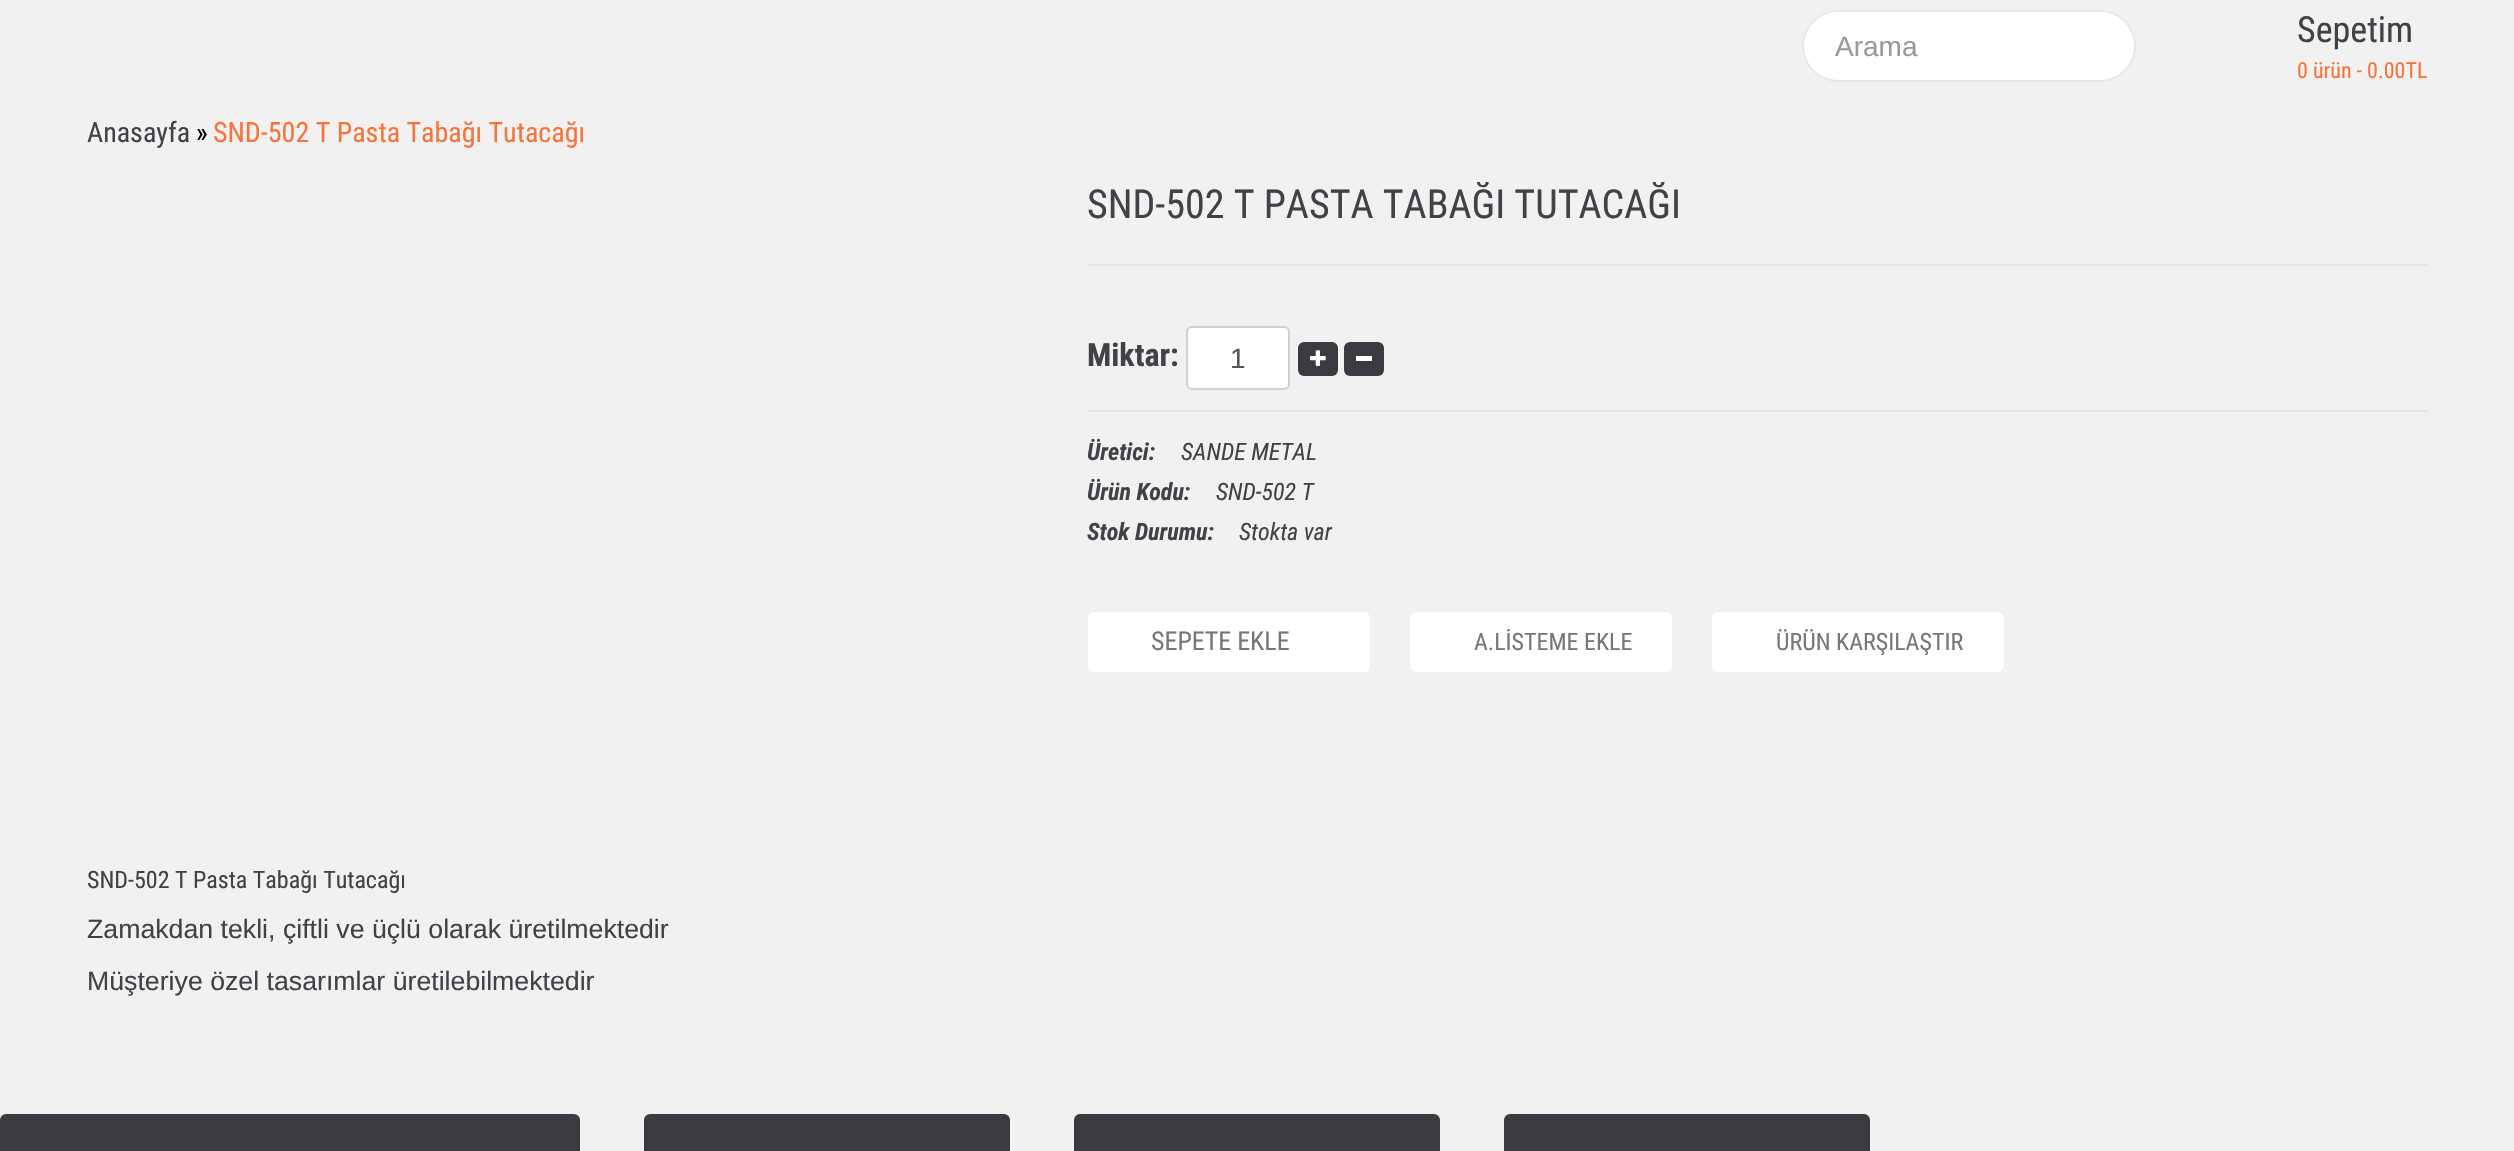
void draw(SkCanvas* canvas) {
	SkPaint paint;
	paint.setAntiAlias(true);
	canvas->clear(0xfff1f1f1);
	paint.setColor(0xffffffff);
	canvas->drawRoundRect(SkRect::MakeXYWH(1803, 11, 332, 70), 35, 35, paint);
	paint.setStroke(true);
	paint.setStrokeWidth(2);
	paint.setColor(0xffe8e8e8);
	canvas->drawRoundRect(SkRect::MakeXYWH(1803, 11, 332, 70), 35, 35, paint);
	SkFont f1(fontMgr->matchFamilyStyle("Liberation Sans", SkFontStyle::Normal()), 28);
	f1.setSubpixel(true);
	paint.setStroke(false);
	paint.setColor(0xff999999);
	canvas->drawString("Arama", 1835, 56, f1, paint);
	SkFont f2(fontMgr->matchFamilyStyle("Roboto Condensed", SkFontStyle::Normal()), 36);
	f2.setSubpixel(true);
	paint.setColor(0xff404247);
	canvas->drawString("Sepetim", 2297, 42, f2, paint);
	SkFont f3(fontMgr->matchFamilyStyle("Roboto Condensed", SkFontStyle::Normal()), 22);
	f3.setSubpixel(true);
	paint.setColor(0xfff6733a);
	canvas->drawString("0 ürün - 0.00TL", 2297, 78, f3, paint);
	SkFont f4(fontMgr->matchFamilyStyle("Roboto Condensed", SkFontStyle::Normal()), 28);
	f4.setSubpixel(true);
	paint.setColor(0xff404247);
	canvas->drawString("Anasayfa", 87, 142, f4, paint);
	paint.setColor(0xff000000);
	canvas->drawString("»", 196, 142, f4, paint);
	paint.setColor(0xfff6733a);
	canvas->drawString("SND-502 T Pasta Tabağı Tutacağı", 213, 142, f4, paint);
	SkFont f5(fontMgr->matchFamilyStyle("Roboto Condensed", SkFontStyle::Normal()), 40);
	f5.setSubpixel(true);
	paint.setColor(0xff404247);
	canvas->drawString("SND-502 T PASTA TABAĞI TUTACAĞI", 1087, 218, f5, paint);
	paint.setColor(0xffe5e5e5);
	canvas->drawRect(SkRect::MakeXYWH(1088, 264, 1340, 2), paint);
	canvas->drawRect(SkRect::MakeXYWH(1088, 410, 1340, 2), paint);
	SkFont f6(fontMgr->matchFamilyStyle("Roboto Condensed", SkFontStyle::Bold()), 32);
	f6.setSubpixel(true);
	paint.setColor(0xff404247);
	canvas->drawString("Miktar:", 1087, 366, f6, paint);
	paint.setColor(0xffffffff);
	canvas->drawRoundRect(SkRect::MakeXYWH(1187, 327, 102, 62), 5, 5, paint);
	paint.setStroke(true);
	paint.setColor(0xffd0d0d0);
	canvas->drawRoundRect(SkRect::MakeXYWH(1187, 327, 102, 62), 5, 5, paint);
	paint.setStroke(false);
	paint.setColor(0xff555555);
	canvas->drawString("1", 1230, 368, f1, paint);
	paint.setColor(0xff393b40);
	canvas->drawRoundRect(SkRect::MakeXYWH(1298, 342, 40, 34), 6, 6, paint);
	canvas->drawImageRect(SkImages::DeferredFromEncodedData(SkData::MakeFromFileName("img1.png")), SkRect::MakeXYWH(1310, 350, 16, 16), SkSamplingOptions());
	canvas->drawRoundRect(SkRect::MakeXYWH(1344, 342, 40, 34), 6, 6, paint);
	paint.setColor(0xffffffff);
	canvas->drawRect(SkRect::MakeXYWH(1356, 356, 16, 5), paint);
	SkFont f7(fontMgr->matchFamilyStyle("Roboto Condensed", SkFontStyle::BoldItalic()), 24);
	f7.setSubpixel(true);
	paint.setColor(0xff404247);
	canvas->drawString("Üretici:", 1087, 460, f7, paint);
	SkFont f8(fontMgr->matchFamilyStyle("Roboto Condensed", SkFontStyle::Italic()), 24);
	f8.setSubpixel(true);
	canvas->drawString("SANDE METAL", 1181, 460, f8, paint);
	canvas->drawString("Ürün Kodu:", 1087, 500, f7, paint);
	canvas->drawString("SND-502 T", 1216, 500, f8, paint);
	canvas->drawString("Stok Durumu:", 1087, 540, f7, paint);
	canvas->drawString("Stokta var", 1239, 540, f8, paint);
	paint.setColor(0xffffffff);
	canvas->drawRoundRect(SkRect::MakeXYWH(1088, 612, 282, 60), 6, 6, paint);
	SkFont f9(fontMgr->matchFamilyStyle("Roboto Condensed", SkFontStyle::Normal()), 26);
	f9.setSubpixel(true);
	paint.setColor(0xff75777d);
	canvas->drawString("SEPETE EKLE", 1151, 650, f9, paint);
	paint.setColor(0xffffffff);
	canvas->drawRoundRect(SkRect::MakeXYWH(1410, 612, 262, 60), 6, 6, paint);
	SkFont f10(fontMgr->matchFamilyStyle("Roboto Condensed", SkFontStyle::Normal()), 24);
	f10.setSubpixel(true);
	paint.setColor(0xff75777d);
	canvas->drawString("A.LİSTEME EKLE", 1474, 650, f10, paint);
	paint.setColor(0xffffffff);
	canvas->drawRoundRect(SkRect::MakeXYWH(1712, 612, 292, 60), 6, 6, paint);
	paint.setColor(0xff75777d);
	canvas->drawString("ÜRÜN KARŞILAŞTIR", 1776, 650, f10, paint);
	paint.setColor(0xff404247);
	canvas->drawString("SND-502 T Pasta Tabağı Tutacağı", 87, 888, f10, paint);
	SkFont f11(fontMgr->matchFamilyStyle("Liberation Sans", SkFontStyle::Normal()), 26.7);
	f11.setSubpixel(true);
	canvas->drawString("Zamakdan tekli, çiftli ve üçlü olarak üretilmektedir", 87, 938, f11, paint);
	canvas->drawString("Müşteriye özel tasarımlar üretilebilmektedir", 87, 990, f11, paint);
	paint.setColor(0xff393b40);
	canvas->drawRoundRect(SkRect::MakeXYWH(0, 1114, 580, 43), 6, 6, paint);
	canvas->drawRoundRect(SkRect::MakeXYWH(644, 1114, 366, 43), 6, 6, paint);
	canvas->drawRoundRect(SkRect::MakeXYWH(1074, 1114, 366, 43), 6, 6, paint);
	canvas->drawRoundRect(SkRect::MakeXYWH(1504, 1114, 366, 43), 6, 6, paint);
}
